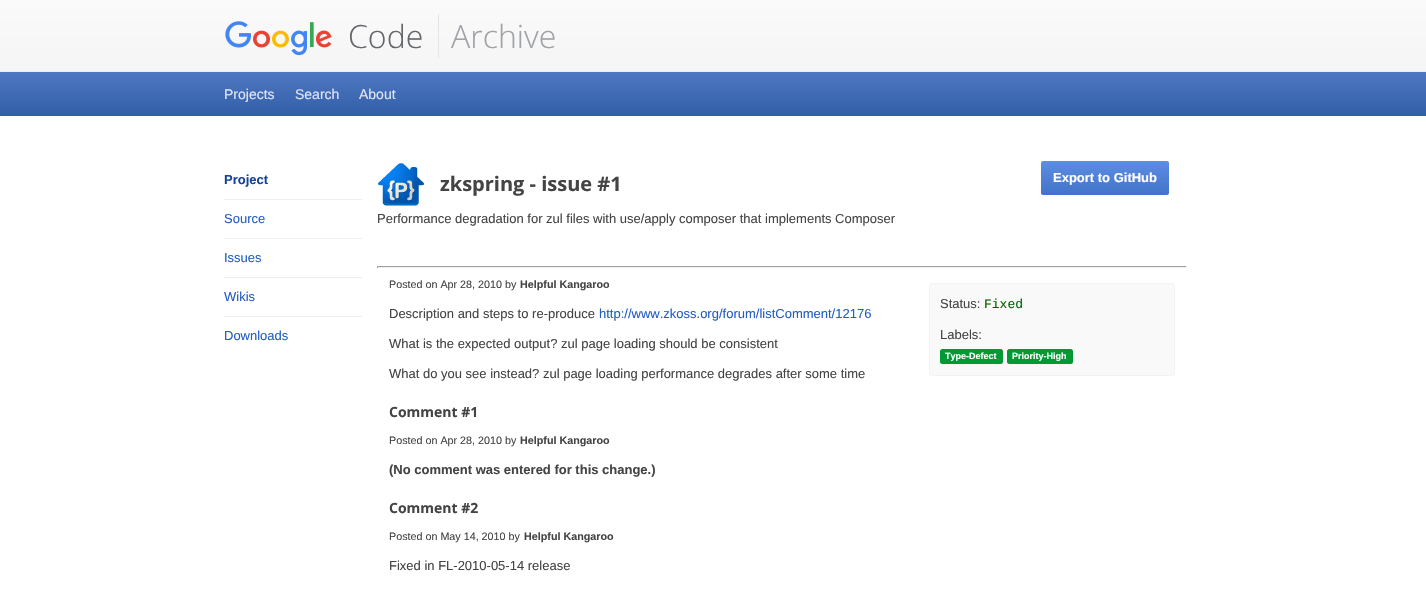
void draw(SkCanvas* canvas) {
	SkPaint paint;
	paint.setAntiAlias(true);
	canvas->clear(0xffffffff);
	{
		const SkColor colors[] = {0xfffafafa, 0xfff5f5f5};
		const float stops[] = {0, 1};
		const SkPoint ends[] = {{0, 0}, {0, 71}};
		paint.setShader(SkGradientShader::MakeLinear(ends, colors, stops, 2, SkTileMode::kClamp));
		paint.setAlpha(255);
	}
	canvas->drawRect(SkRect::MakeXYWH(0, 0, 1426, 71), paint);
	paint.setShader(nullptr);
	paint.setColor(0xffeeeeee);
	canvas->drawRect(SkRect::MakeXYWH(0, 71, 1426, 1), paint);
	canvas->drawImageRect(SkImages::DeferredFromEncodedData(SkData::MakeFromFileName("img1.png")), SkRect::MakeXYWH(225, 21, 107, 35), SkSamplingOptions());
	SkFont f1(fontMgr->matchFamilyStyle("Open Sans", SkFontStyle(300, SkFontStyle::kNormal_Width, SkFontStyle::kUpright_Slant)), 32);
	f1.setSubpixel(true);
	paint.setColor(0xff63666a);
	canvas->drawString("Code", 348, 48, f1, paint);
	paint.setColor(0xffe5e5e5);
	canvas->drawRect(SkRect::MakeXYWH(438, 14, 1, 44), paint);
	paint.setColor(0xff9fa2a6);
	canvas->drawString("Archive", 451, 48, f1, paint);
	{
		const SkColor colors[] = {0xff4e78c2, 0xff325da7};
		const float stops[] = {0, 1};
		const SkPoint ends[] = {{0, 72}, {0, 116}};
		paint.setShader(SkGradientShader::MakeLinear(ends, colors, stops, 2, SkTileMode::kClamp));
		paint.setAlpha(255);
	}
	canvas->drawRect(SkRect::MakeXYWH(0, 72, 1426, 44), paint);
	SkFont f2(fontMgr->matchFamilyStyle("Liberation Sans", SkFontStyle::Normal()), 14);
	f2.setSubpixel(true);
	paint.setShader(nullptr);
	paint.setColor(0xffe1e5f2);
	canvas->drawString("Projects", 224, 99, f2, paint);
	canvas->drawString("Search", 295, 99, f2, paint);
	canvas->drawString("About", 359, 99, f2, paint);
	paint.setColor(0xffeeeeee);
	canvas->drawRect(SkRect::MakeXYWH(224, 199, 138, 1), paint);
	SkFont f3(fontMgr->matchFamilyStyle("Liberation Sans", SkFontStyle::Bold()), 13);
	f3.setSubpixel(true);
	paint.setColor(0xff164495);
	canvas->drawString("Project", 224, 184, f3, paint);
	paint.setColor(0xffeeeeee);
	canvas->drawRect(SkRect::MakeXYWH(224, 238, 138, 1), paint);
	SkFont f4(fontMgr->matchFamilyStyle("Liberation Sans", SkFontStyle::Normal()), 13);
	f4.setSubpixel(true);
	paint.setColor(0xff245dc1);
	canvas->drawString("Source", 224, 223, f4, paint);
	paint.setColor(0xffeeeeee);
	canvas->drawRect(SkRect::MakeXYWH(224, 277, 138, 1), paint);
	paint.setColor(0xff245dc1);
	canvas->drawString("Issues", 224, 262, f4, paint);
	paint.setColor(0xffeeeeee);
	canvas->drawRect(SkRect::MakeXYWH(224, 316, 138, 1), paint);
	paint.setColor(0xff245dc1);
	canvas->drawString("Wikis", 224, 301, f4, paint);
	canvas->drawString("Downloads", 224, 340, f4, paint);
	canvas->drawImageRect(SkImages::DeferredFromEncodedData(SkData::MakeFromFileName("img2.png")), SkRect::MakeXYWH(378, 163, 46, 43), SkSamplingOptions());
	SkFont f5(fontMgr->matchFamilyStyle("Open Sans", SkFontStyle::Bold()), 20);
	f5.setSubpixel(true);
	paint.setColor(0xff444444);
	canvas->drawString("zkspring - issue #1", 440, 191, f5, paint);
	{
		const SkColor colors[] = {0xff5e8ee4, 0xff4173c9};
		const float stops[] = {0, 1};
		const SkPoint ends[] = {{1041, 161}, {1041, 195}};
		paint.setShader(SkGradientShader::MakeLinear(ends, colors, stops, 2, SkTileMode::kClamp));
		paint.setAlpha(255);
	}
	canvas->drawRoundRect(SkRect::MakeXYWH(1041, 161, 128, 34), 2, 2, paint);
	paint.setShader(nullptr);
	paint.setColor(0xffffffff);
	canvas->drawString("Export to GitHub", 1053, 182, f3, paint);
	paint.setColor(0xff444444);
	canvas->drawString("Performance degradation for zul files with use/apply composer that implements Composer", 377, 223, f4, paint);
	paint.setColor(0xff9f9f9f);
	canvas->drawRect(SkRect::MakeXYWH(377, 266, 810, 1), paint);
	paint.setColor(0xffeeeeee);
	canvas->drawRect(SkRect::MakeXYWH(1186, 266, 1, 2), paint);
	canvas->drawRect(SkRect::MakeXYWH(377, 267, 810, 1), paint);
	paint.setColor(0xff9f9f9f);
	canvas->drawRect(SkRect::MakeXYWH(377, 266, 1, 2), paint);
	SkFont f6(fontMgr->matchFamilyStyle("Liberation Sans", SkFontStyle::Normal()), 10.75);
	f6.setSubpixel(true);
	paint.setColor(0xff444444);
	canvas->drawString("Posted on Apr 28, 2010 by", 389, 288, f6, paint);
	SkFont f7(fontMgr->matchFamilyStyle("Liberation Sans", SkFontStyle::Bold()), 10.75);
	f7.setSubpixel(true);
	canvas->drawString("Helpful Kangaroo", 520, 288, f7, paint);
	canvas->drawString("Description and steps to re-produce", 389, 318, f4, paint);
	paint.setColor(0xff245dc1);
	canvas->drawString("http://www.zkoss.org/forum/listComment/12176", 599, 318, f4, paint);
	paint.setColor(0xff444444);
	canvas->drawString("What is the expected output? zul page loading should be consistent", 389, 348, f4, paint);
	canvas->drawString("What do you see instead? zul page loading performance degrades after some time", 389, 378, f4, paint);
	SkFont f8(fontMgr->matchFamilyStyle("Open Sans", SkFontStyle::Bold()), 14);
	f8.setSubpixel(true);
	canvas->drawString("Comment #1", 389, 417, f8, paint);
	canvas->drawString("Posted on Apr 28, 2010 by", 389, 444, f6, paint);
	canvas->drawString("Helpful Kangaroo", 520, 444, f7, paint);
	canvas->drawString("(No comment was entered for this change.)", 389, 474, f3, paint);
	canvas->drawString("Comment #2", 389, 513, f8, paint);
	canvas->drawString("Posted on May 14, 2010 by", 389, 540, f6, paint);
	canvas->drawString("Helpful Kangaroo", 524, 540, f7, paint);
	canvas->drawString("Fixed in FL-2010-05-14 release", 389, 570, f4, paint);
	paint.setColor(0xfff9f9f9);
	canvas->drawRoundRect(SkRect::MakeXYWH(929.5, 283.5, 245, 92), 3.5, 3.5, paint);
	paint.setStroke(true);
	paint.setStrokeWidth(1);
	paint.setColor(0xfff2f2f2);
	canvas->drawRoundRect(SkRect::MakeXYWH(929.5, 283.5, 245, 92), 3.5, 3.5, paint);
	paint.setStroke(false);
	paint.setColor(0xff444444);
	canvas->drawString("Status:", 940, 308, f4, paint);
	SkFont f9(fontMgr->matchFamilyStyle("Liberation Mono", SkFontStyle::Normal()), 13);
	f9.setSubpixel(true);
	paint.setColor(0xff006600);
	canvas->drawString("Fixed", 984, 308, f9, paint);
	paint.setColor(0xff444444);
	canvas->drawString("Labels:", 940, 339, f4, paint);
	paint.setColor(0xff009933);
	canvas->drawRoundRect(SkRect::MakeXYWH(940, 349, 63, 15), 2.5, 2.5, paint);
	SkFont f10(fontMgr->matchFamilyStyle("Liberation Sans", SkFontStyle::Bold()), 9);
	f10.setSubpixel(true);
	paint.setColor(0xffffffff);
	canvas->drawString("Type-Defect", 945, 359, f10, paint);
	paint.setColor(0xff009933);
	canvas->drawRoundRect(SkRect::MakeXYWH(1007, 349, 66, 15), 2.5, 2.5, paint);
	paint.setColor(0xffffffff);
	canvas->drawString("Priority-High", 1012, 359, f10, paint);
}
